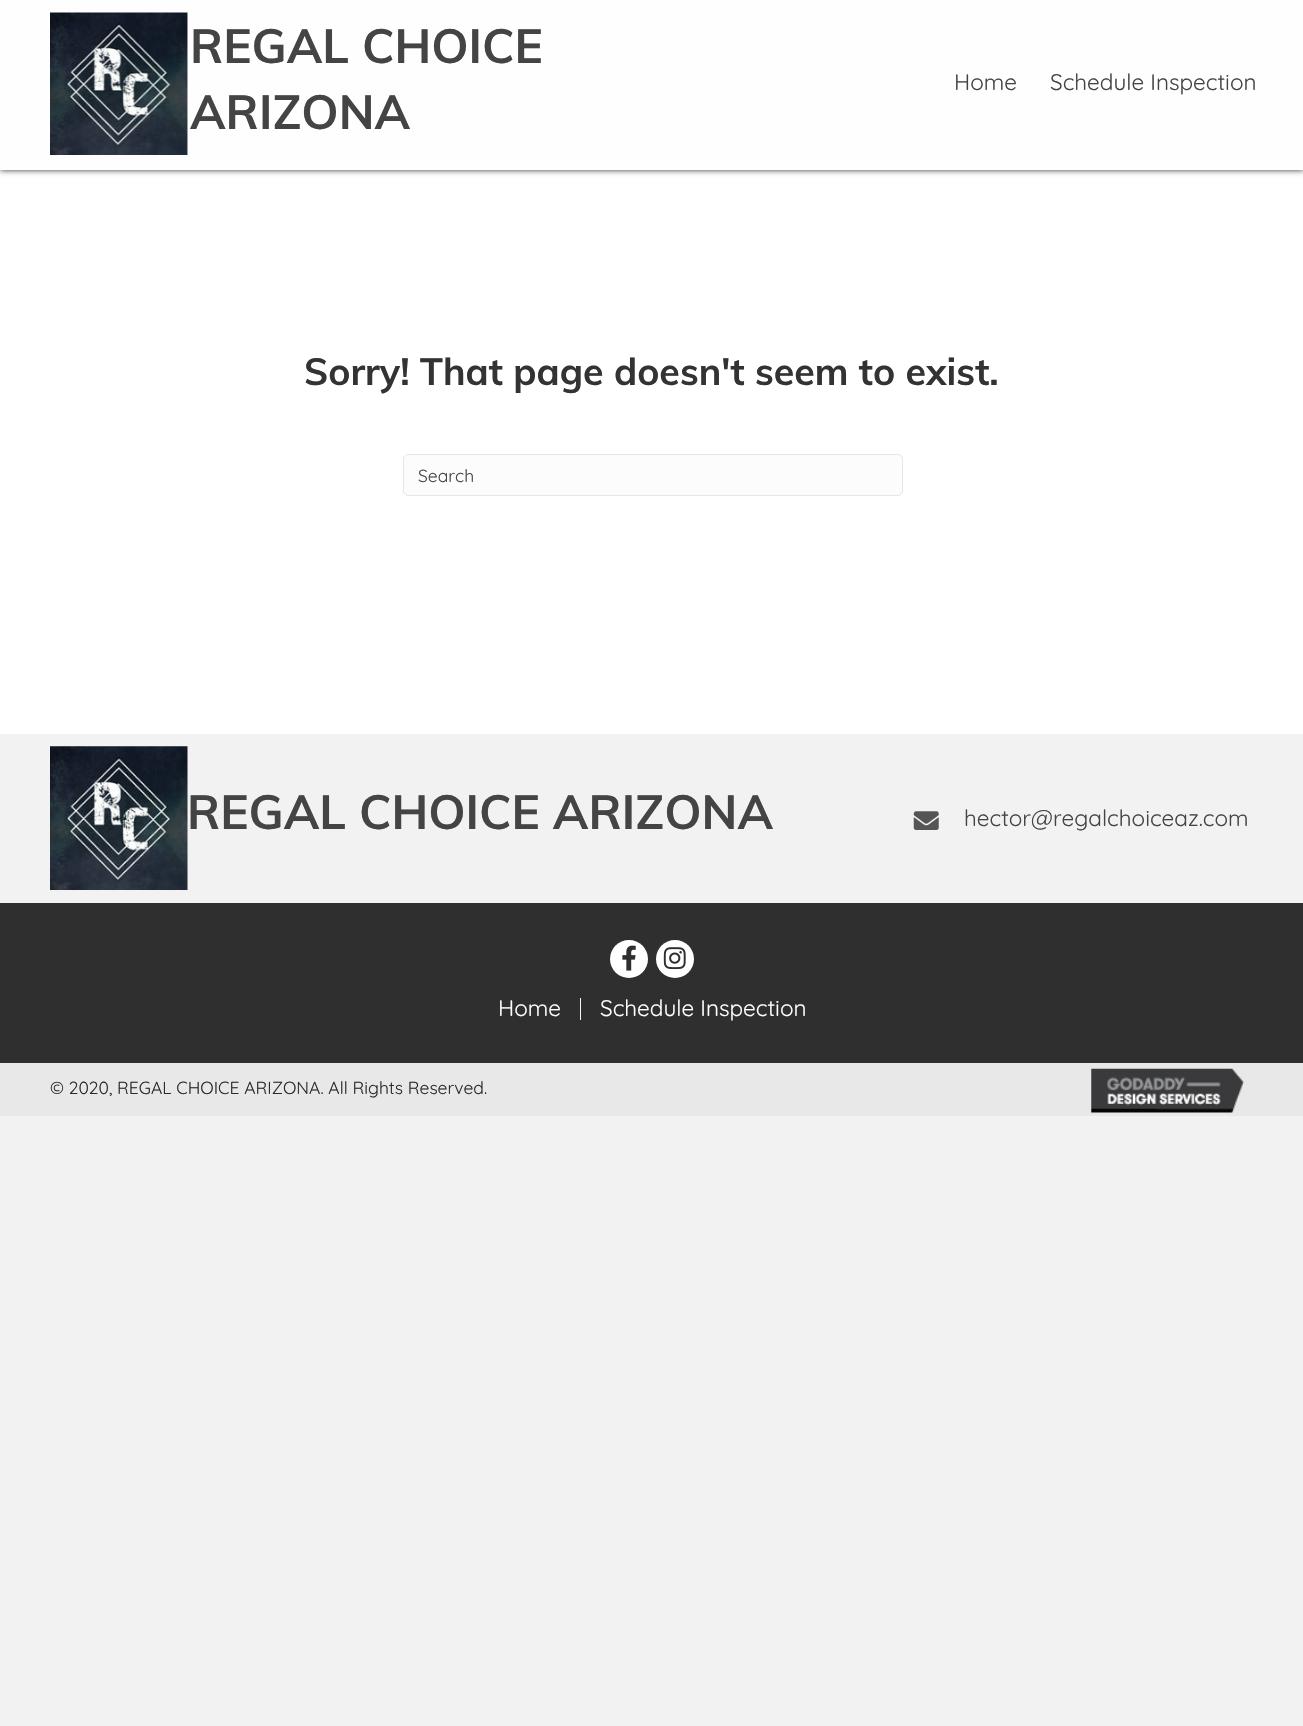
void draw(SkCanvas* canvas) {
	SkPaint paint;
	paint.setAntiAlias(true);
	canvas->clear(0xfff2f2f2);
	paint.setColor(0xffffffff);
	canvas->drawRect(SkRect::MakeXYWH(0, 170, 1303, 564), paint);
	paint.setColor(0xff333333);
	paint.setMaskFilter(SkMaskFilter::MakeBlur(kNormal_SkBlurStyle, 3));
	canvas->drawRect(SkRect::MakeXYWH(0, 0, 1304, 170), paint);
	paint.setMaskFilter(nullptr);
	paint.setColor(0xfffefefe);
	canvas->drawRect(SkRect::MakeXYWH(0, 0, 1303, 170), paint);
	canvas->drawImageRect(SkImages::DeferredFromEncodedData(SkData::MakeFromFileName("img1.png")), SkRect::MakeXYWH(50, 12, 138, 143), SkSamplingOptions());
	SkFont f1(fontMgr->matchFamilyStyle("Muli", SkFontStyle::Bold()), 47.5);
	f1.setSubpixel(true);
	paint.setColor(0xff444444);
	canvas->drawString("REGAL CHOICE", 190, 63, f1, paint);
	canvas->drawString("ARIZONA", 190, 129, f1, paint);
	SkFont f2(fontMgr->matchFamilyStyle("Quicksand", SkFontStyle::Normal()), 22.5);
	f2.setSubpixel(true);
	canvas->drawString("Home", 954, 90, f2, paint);
	canvas->drawString("Schedule Inspection", 1050, 90, f2, paint);
	SkFont f3(fontMgr->matchFamilyStyle("Muli", SkFontStyle::Bold()), 37.5);
	f3.setSubpixel(true);
	paint.setColor(0xff333333);
	canvas->drawString("Sorry! That page doesn't seem to exist.", 304, 385, f3, paint);
	paint.setColor(0xfffcfcfc);
	canvas->drawRoundRect(SkRect::MakeXYWH(403.5, 454.5, 499, 41), 4.5, 4.5, paint);
	paint.setStroke(true);
	paint.setStrokeWidth(1);
	paint.setColor(0xffe6e6e6);
	canvas->drawRoundRect(SkRect::MakeXYWH(403.5, 454.5, 499, 41), 4.5, 4.5, paint);
	SkFont f4(fontMgr->matchFamilyStyle("Quicksand", SkFontStyle::Normal()), 17.5);
	f4.setSubpixel(true);
	paint.setStroke(false);
	paint.setColor(0xff444444);
	canvas->drawString("Search", 418, 482, f4, paint);
	canvas->drawImageRect(SkImages::DeferredFromEncodedData(SkData::MakeFromFileName("img2.png")), SkRect::MakeXYWH(50, 746, 138, 144), SkSamplingOptions());
	canvas->drawString("REGAL CHOICE ARIZONA", 187, 829, f1, paint);
	canvas->drawImageRect(SkImages::DeferredFromEncodedData(SkData::MakeFromFileName("img3.png")), SkRect::MakeXYWH(913, 811, 26, 19), SkSamplingOptions());
	canvas->drawString("hector@regalchoiceaz.com", 964, 826, f2, paint);
	paint.setColor(0xff2f2f2f);
	canvas->drawRect(SkRect::MakeXYWH(0, 903, 1303, 160), paint);
	paint.setColor(0xffffffff);
	canvas->drawCircle(629, 959, 19, paint);
	canvas->drawImageRect(SkImages::DeferredFromEncodedData(SkData::MakeFromFileName("img4.png")), SkRect::MakeXYWH(622, 945, 14, 26), SkSamplingOptions());
	canvas->drawCircle(675, 959, 19, paint);
	canvas->drawImageRect(SkImages::DeferredFromEncodedData(SkData::MakeFromFileName("img5.png")), SkRect::MakeXYWH(663, 947, 23, 23), SkSamplingOptions());
	canvas->drawString("Home", 498, 1016, f2, paint);
	paint.setColor(0xfff5f5f5);
	canvas->drawRect(SkRect::MakeXYWH(580, 998, 1, 22), paint);
	paint.setColor(0xffffffff);
	canvas->drawString("Schedule Inspection", 600, 1016, f2, paint);
	paint.setColor(0xffe8e8e8);
	canvas->drawRect(SkRect::MakeXYWH(0, 1063, 1303, 53), paint);
	paint.setColor(0xff2b2b2b);
	canvas->drawString("© 2020, REGAL CHOICE ARIZONA. All Rights Reserved.", 50, 1094, f4, paint);
	canvas->drawImageRect(SkImages::DeferredFromEncodedData(SkData::MakeFromFileName("img6.png")), SkRect::MakeXYWH(1091, 1068, 154, 45), SkSamplingOptions());
}
